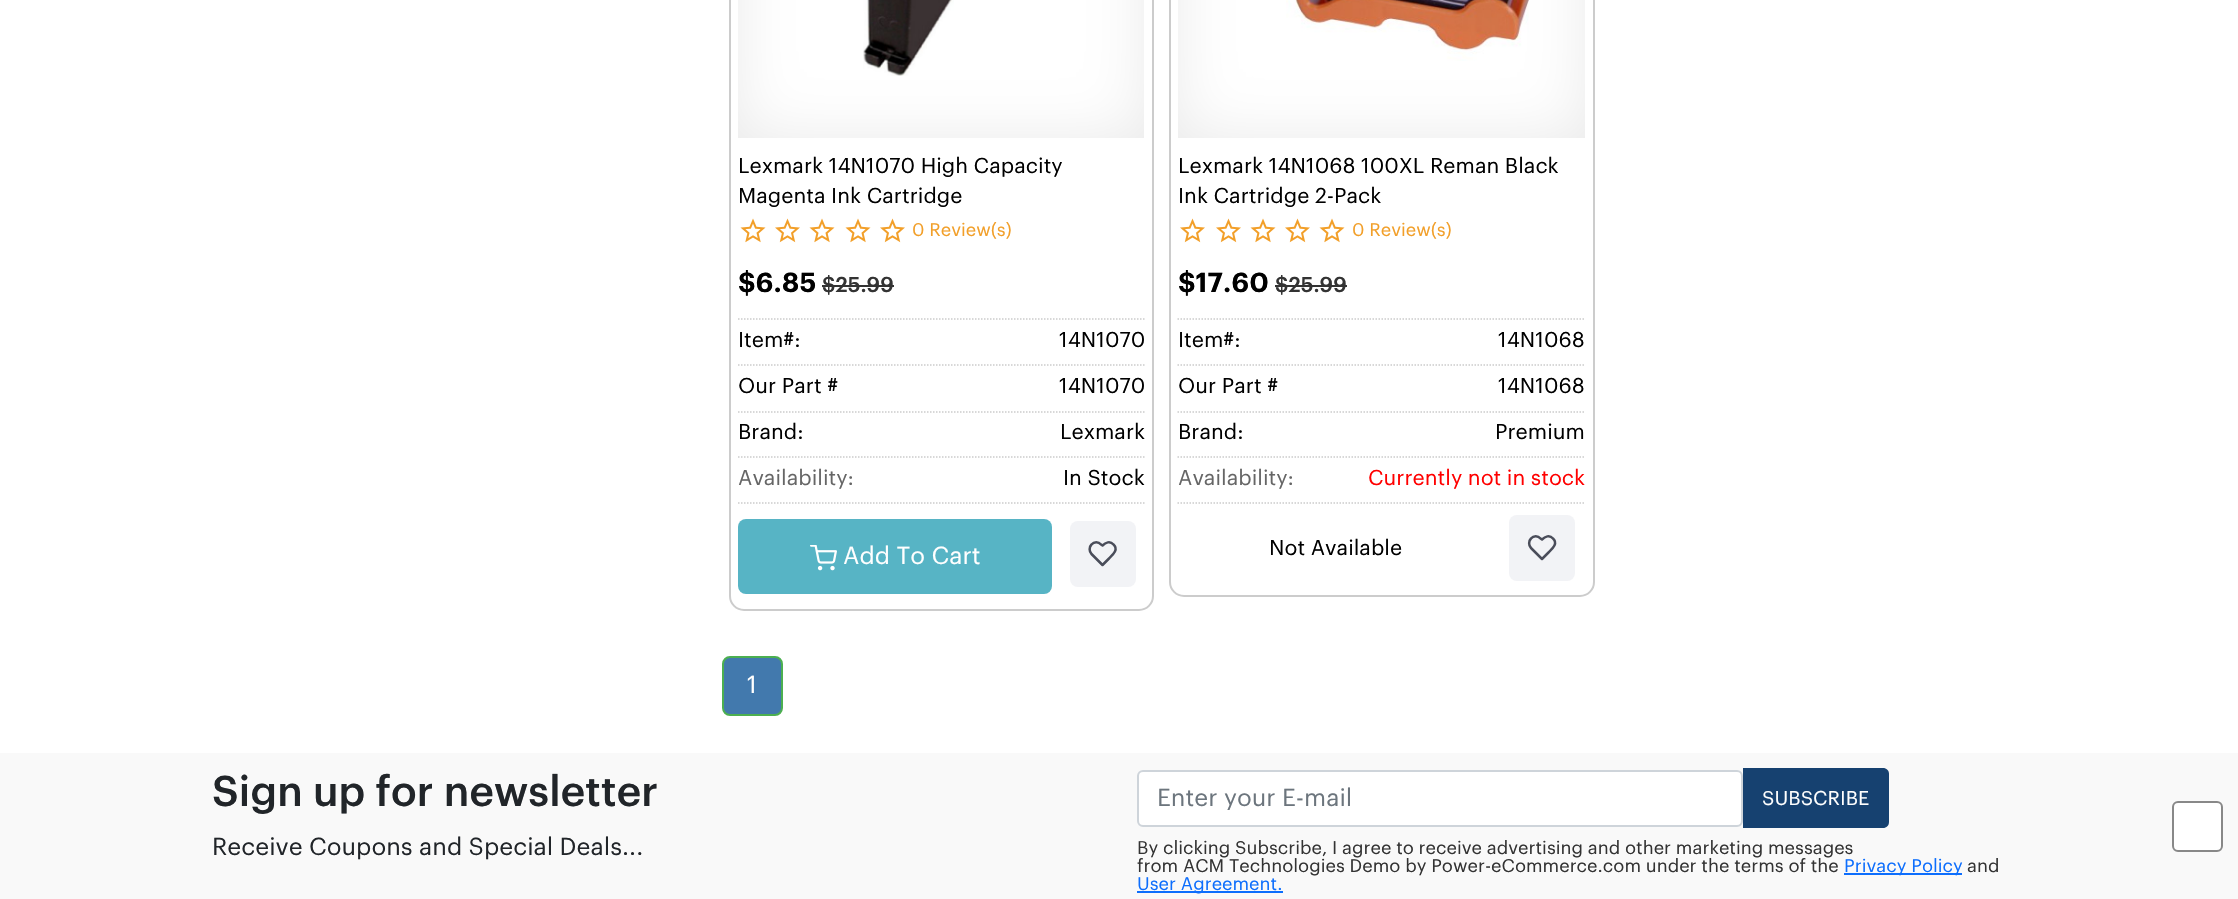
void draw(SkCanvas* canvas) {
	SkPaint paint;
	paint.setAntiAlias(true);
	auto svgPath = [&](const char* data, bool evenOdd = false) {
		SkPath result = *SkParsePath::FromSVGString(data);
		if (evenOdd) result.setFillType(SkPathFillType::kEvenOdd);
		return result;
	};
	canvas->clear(0xffffffff);
	paint.setStroke(true);
	paint.setStrokeWidth(2);
	paint.setColor(0xffcccccc);
	canvas->drawRoundRect(SkRect::MakeXYWH(730, -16, 423, 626), 14, 14, paint);
	canvas->drawImageRect(SkImages::DeferredFromEncodedData(SkData::MakeFromFileName("img1.png")), SkRect::MakeXYWH(863, 0, 91, 76), SkSamplingOptions());
	canvas->drawImageRect(SkImages::DeferredFromEncodedData(SkData::MakeFromFileName("img2.png")), SkRect::MakeXYWH(738, 0, 406, 138), SkSamplingOptions());
	SkFont f1(fontMgr->matchFamilyStyle("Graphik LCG", SkFontStyle::Normal()), 21);
	f1.setSubpixel(true);
	paint.setStroke(false);
	paint.setColor(0xff000000);
	canvas->drawString("Lexmark 14N1070 High Capacity", 738, 173, f1, paint);
	canvas->drawString("Magenta Ink Cartridge", 738, 203, f1, paint);
	canvas->drawImageRect(SkImages::DeferredFromEncodedData(SkData::MakeFromFileName("img3.png")), SkRect::MakeXYWH(740, 218, 26, 25), SkSamplingOptions());
	canvas->drawImageRect(SkImages::DeferredFromEncodedData(SkData::MakeFromFileName("img4.png")), SkRect::MakeXYWH(775, 218, 25, 25), SkSamplingOptions());
	canvas->drawImageRect(SkImages::DeferredFromEncodedData(SkData::MakeFromFileName("img3.png")), SkRect::MakeXYWH(809, 218, 26, 25), SkSamplingOptions());
	canvas->drawImageRect(SkImages::DeferredFromEncodedData(SkData::MakeFromFileName("img3.png")), SkRect::MakeXYWH(845, 218, 26, 25), SkSamplingOptions());
	canvas->drawImageRect(SkImages::DeferredFromEncodedData(SkData::MakeFromFileName("img4.png")), SkRect::MakeXYWH(880, 218, 25, 25), SkSamplingOptions());
	SkFont f2(fontMgr->matchFamilyStyle("Graphik LCG", SkFontStyle::Normal()), 18);
	f2.setSubpixel(true);
	paint.setColor(0xfff29f29);
	canvas->drawString("0 Review(s)", 912, 236, f2, paint);
	SkFont f3(fontMgr->matchFamilyStyle("Graphik LCG", SkFontStyle(600, SkFontStyle::kNormal_Width, SkFontStyle::kUpright_Slant)), 27);
	f3.setSubpixel(true);
	paint.setColor(0xff000000);
	canvas->drawString("$6.85", 738, 292, f3, paint);
	SkFont f4(fontMgr->matchFamilyStyle("Graphik LCG", SkFontStyle(500, SkFontStyle::kNormal_Width, SkFontStyle::kUpright_Slant)), 21);
	f4.setSubpixel(true);
	paint.setColor(0xff333333);
	canvas->drawString("$25.99", 822, 292, f4, paint);
	canvas->drawRect(SkRect::MakeXYWH(822, 285, 72, 2), paint);
	paint.setStroke(true);
	paint.setStrokeWidth(1.5);
	paint.setColor(0xffcccccc);
	paint.setPathEffect(SkDashPathEffect::Make({{1.5f, 1.5f}}, 0));
	canvas->drawPath(svgPath("M738 319H1144.5"), paint);
	paint.setPathEffect(nullptr);
	paint.setStroke(false);
	paint.setColor(0xff000000);
	canvas->drawString("Item#:", 738, 347, f1, paint);
	canvas->drawString("14N1070", 1059, 347, f1, paint);
	paint.setStroke(true);
	paint.setColor(0xffcccccc);
	paint.setPathEffect(SkDashPathEffect::Make({{1.5f, 1.5f}}, 0));
	canvas->drawPath(svgPath("M738 365H1144.5"), paint);
	paint.setPathEffect(nullptr);
	paint.setStroke(false);
	paint.setColor(0xff000000);
	canvas->drawString("Our Part #", 738, 393, f1, paint);
	canvas->drawString("14N1070", 1059, 393, f1, paint);
	paint.setStroke(true);
	paint.setColor(0xffcccccc);
	paint.setPathEffect(SkDashPathEffect::Make({{1.5f, 1.5f}}, 0));
	canvas->drawPath(svgPath("M738 412H1144.5"), paint);
	paint.setPathEffect(nullptr);
	paint.setStroke(false);
	paint.setColor(0xff000000);
	canvas->drawString("Brand:", 738, 439, f1, paint);
	canvas->drawString("Lexmark", 1060, 439, f1, paint);
	paint.setStroke(true);
	paint.setColor(0xffcccccc);
	paint.setPathEffect(SkDashPathEffect::Make({{1.5f, 1.5f}}, 0));
	canvas->drawPath(svgPath("M738 457H1144.5"), paint);
	paint.setPathEffect(nullptr);
	paint.setStroke(false);
	paint.setColor(0xff666666);
	canvas->drawString("Availability:", 738, 485, f1, paint);
	paint.setColor(0xff000000);
	canvas->drawString("In Stock", 1063, 485, f1, paint);
	paint.setStroke(true);
	paint.setColor(0xffcccccc);
	paint.setPathEffect(SkDashPathEffect::Make({{1.5f, 1.5f}}, 0));
	canvas->drawPath(svgPath("M738 503H1144.5"), paint);
	paint.setPathEffect(nullptr);
	paint.setStroke(false);
	paint.setColor(0xff57b4c5);
	canvas->drawRoundRect(SkRect::MakeXYWH(738, 519, 314, 75), 8, 8, paint);
	canvas->drawImageRect(SkImages::DeferredFromEncodedData(SkData::MakeFromFileName("img5.png")), SkRect::MakeXYWH(810, 545, 27, 26), SkSamplingOptions());
	SkFont f5(fontMgr->matchFamilyStyle("Graphik LCG", SkFontStyle::Normal()), 24);
	f5.setSubpixel(true);
	paint.setColor(0xffffffff);
	canvas->drawString("Add To Cart", 843, 564, f5, paint);
	paint.setColor(0xfff2f3f6);
	canvas->drawRoundRect(SkRect::MakeXYWH(1070, 521, 66, 66), 8, 8, paint);
	paint.setStroke(true);
	paint.setStrokeWidth(2.5);
	paint.setStrokeCap(SkPaint::kRound_Cap);
	paint.setStrokeJoin(SkPaint::kRound_Join);
	paint.setColor(0xff4a4d5a);
	canvas->drawPath(svgPath("M1113.5 544.5C1110 540.5 1105.5 542.5 1102.5 545.5L1101 544.5C1098.5 541.5 1094 541.5 1091.5 544.5C1089 547 1089 551.5 1091.5 554L1102.5 565L1109 558.5C1112.5 555 1119 549.5 1113.5 544.5Z"), paint);
	paint.setStrokeWidth(2);
	paint.setStrokeCap(SkPaint::kButt_Cap);
	paint.setStrokeJoin(SkPaint::kMiter_Join);
	paint.setColor(0xffcccccc);
	canvas->drawRoundRect(SkRect::MakeXYWH(1170, -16, 424, 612), 14, 14, paint);
	canvas->drawImageRect(SkImages::DeferredFromEncodedData(SkData::MakeFromFileName("img6.png")), SkRect::MakeXYWH(1286, 0, 243, 61), SkSamplingOptions());
	canvas->drawImageRect(SkImages::DeferredFromEncodedData(SkData::MakeFromFileName("img7.png")), SkRect::MakeXYWH(1178, 0, 407, 138), SkSamplingOptions());
	paint.setStroke(false);
	paint.setColor(0xff000000);
	canvas->drawString("Lexmark 14N1068 100XL Reman Black", 1178, 173, f1, paint);
	canvas->drawString("Ink Cartridge 2-Pack", 1178, 203, f1, paint);
	canvas->drawImageRect(SkImages::DeferredFromEncodedData(SkData::MakeFromFileName("img4.png")), SkRect::MakeXYWH(1180, 218, 25, 25), SkSamplingOptions());
	canvas->drawImageRect(SkImages::DeferredFromEncodedData(SkData::MakeFromFileName("img4.png")), SkRect::MakeXYWH(1216, 218, 25, 25), SkSamplingOptions());
	canvas->drawImageRect(SkImages::DeferredFromEncodedData(SkData::MakeFromFileName("img3.png")), SkRect::MakeXYWH(1250, 218, 26, 25), SkSamplingOptions());
	canvas->drawImageRect(SkImages::DeferredFromEncodedData(SkData::MakeFromFileName("img4.png")), SkRect::MakeXYWH(1285, 218, 25, 25), SkSamplingOptions());
	canvas->drawImageRect(SkImages::DeferredFromEncodedData(SkData::MakeFromFileName("img3.png")), SkRect::MakeXYWH(1319, 218, 26, 25), SkSamplingOptions());
	paint.setColor(0xfff29f29);
	canvas->drawString("0 Review(s)", 1352, 236, f2, paint);
	paint.setColor(0xff000000);
	canvas->drawString("$17.60", 1178, 292, f3, paint);
	paint.setColor(0xff333333);
	canvas->drawString("$25.99", 1275, 292, f4, paint);
	canvas->drawRect(SkRect::MakeXYWH(1275, 285, 72, 2), paint);
	paint.setStroke(true);
	paint.setStrokeWidth(1.5);
	paint.setColor(0xffcccccc);
	paint.setPathEffect(SkDashPathEffect::Make({{1.5f, 1.5f}}, 0));
	canvas->drawPath(svgPath("M1177.5 319H1585.5"), paint);
	paint.setPathEffect(nullptr);
	paint.setStroke(false);
	paint.setColor(0xff000000);
	canvas->drawString("Item#:", 1178, 347, f1, paint);
	canvas->drawString("14N1068", 1498, 347, f1, paint);
	paint.setStroke(true);
	paint.setColor(0xffcccccc);
	paint.setPathEffect(SkDashPathEffect::Make({{1.5f, 1.5f}}, 0));
	canvas->drawPath(svgPath("M1177.5 365H1585.5"), paint);
	paint.setPathEffect(nullptr);
	paint.setStroke(false);
	paint.setColor(0xff000000);
	canvas->drawString("Our Part #", 1178, 393, f1, paint);
	canvas->drawString("14N1068", 1498, 393, f1, paint);
	paint.setStroke(true);
	paint.setColor(0xffcccccc);
	paint.setPathEffect(SkDashPathEffect::Make({{1.5f, 1.5f}}, 0));
	canvas->drawPath(svgPath("M1177.5 412H1585.5"), paint);
	paint.setPathEffect(nullptr);
	paint.setStroke(false);
	paint.setColor(0xff000000);
	canvas->drawString("Brand:", 1178, 439, f1, paint);
	canvas->drawString("Premium", 1495, 439, f1, paint);
	paint.setStroke(true);
	paint.setColor(0xffcccccc);
	paint.setPathEffect(SkDashPathEffect::Make({{1.5f, 1.5f}}, 0));
	canvas->drawPath(svgPath("M1177.5 457H1585.5"), paint);
	paint.setPathEffect(nullptr);
	paint.setStroke(false);
	paint.setColor(0xff666666);
	canvas->drawString("Availability:", 1178, 485, f1, paint);
	paint.setColor(0xffff0000);
	canvas->drawString("Currently not in stock", 1368, 485, f1, paint);
	paint.setStroke(true);
	paint.setColor(0xffcccccc);
	paint.setPathEffect(SkDashPathEffect::Make({{1.5f, 1.5f}}, 0));
	canvas->drawPath(svgPath("M1177.5 503H1585.5"), paint);
	paint.setPathEffect(nullptr);
	paint.setStroke(false);
	paint.setColor(0xff000000);
	canvas->drawString("Not Available", 1269, 555, f1, paint);
	paint.setColor(0xfff2f3f6);
	canvas->drawRoundRect(SkRect::MakeXYWH(1509, 515, 66, 66), 8, 8, paint);
	paint.setStroke(true);
	paint.setStrokeWidth(2.5);
	paint.setStrokeCap(SkPaint::kRound_Cap);
	paint.setStrokeJoin(SkPaint::kRound_Join);
	paint.setColor(0xff4a4d5a);
	canvas->drawPath(svgPath("M1553 538.5C1549.5 534.5 1545 536.5 1542 539.5L1540.5 538.5C1538 535.5 1533.5 535.5 1531 538.5C1528.5 541 1528.5 545.5 1531 548L1542 559L1548.5 552.5C1552 549 1558.5 543.5 1553 538.5Z"), paint);
	paint.setStroke(false);
	paint.setColor(0xff4279ad);
	canvas->drawRoundRect(SkRect::MakeXYWH(723, 657, 59, 58), 7, 7, paint);
	paint.setStroke(true);
	paint.setStrokeWidth(2);
	paint.setStrokeCap(SkPaint::kButt_Cap);
	paint.setStrokeJoin(SkPaint::kMiter_Join);
	paint.setColor(0xff4caf50);
	canvas->drawRoundRect(SkRect::MakeXYWH(723, 657, 59, 58), 7, 7, paint);
	paint.setStroke(false);
	paint.setColor(0xffffffff);
	canvas->drawString("1", 747, 693, f5, paint);
	paint.setColor(0xfff9f9f9);
	canvas->drawRect(SkRect::MakeXYWH(0, 753, 2238, 146), paint);
	SkFont f6(fontMgr->matchFamilyStyle("Graphik LCG", SkFontStyle(500, SkFontStyle::kNormal_Width, SkFontStyle::kUpright_Slant)), 42);
	f6.setSubpixel(true);
	paint.setColor(0xff212529);
	canvas->drawString("Sign up for newsletter", 212, 806, f6, paint);
	canvas->drawString("Receive Coupons and Special Deals...", 212, 855, f5, paint);
	paint.setColor(0xffffffff);
	canvas->drawRoundRect(SkRect::MakeXYWH(1138, 771, 604, 55), 5, 5, paint);
	paint.setStroke(true);
	paint.setColor(0xffced4da);
	canvas->drawRoundRect(SkRect::MakeXYWH(1138, 771, 604, 55), 5, 5, paint);
	canvas->save();
	canvas->clipRect(SkRect::MakeXYWH(1157, 786, 567, 24));
	paint.setStroke(false);
	paint.setColor(0xff6c757d);
	canvas->drawString("Enter your E-mail", 1157, 806, f5, paint);
	canvas->restore();
	paint.setColor(0xff164170);
	canvas->drawPath(svgPath("M1743 768H1883C1886.5 768 1889 770.5 1889 774V822C1889 825.5 1886.5 828 1883 828H1743Z"), paint);
	SkFont f7(fontMgr->matchFamilyStyle("Graphik LCG", SkFontStyle::Normal()), 19.5);
	f7.setSubpixel(true);
	paint.setColor(0xffffffff);
	canvas->drawString("SUBSCRIBE", 1762, 805, f7, paint);
	paint.setColor(0xff333333);
	canvas->drawString("By clicking Subscribe, I agree to receive advertising and other marketing messages", 1137, 854, f2, paint);
	canvas->drawString("from ACM Technologies Demo by Power-eCommerce.com under the terms of the", 1137, 872, f2, paint);
	paint.setColor(0xff0d6efd);
	canvas->drawRect(SkRect::MakeXYWH(1844, 873, 118, 2), paint);
	canvas->drawString("Privacy Policy", 1844, 872, f2, paint);
	paint.setColor(0xff333333);
	canvas->drawString("and", 1967, 872, f2, paint);
	paint.setColor(0xff0d6efd);
	canvas->drawRect(SkRect::MakeXYWH(1137, 891, 146, 2), paint);
	canvas->drawString("User Agreement.", 1137, 890, f2, paint);
	paint.setColor(0xffffffff);
	canvas->drawRoundRect(SkRect::MakeXYWH(2173, 802, 49, 49), 5, 5, paint);
	paint.setStroke(true);
	paint.setColor(0xff888888);
	canvas->drawRoundRect(SkRect::MakeXYWH(2173, 802, 49, 49), 5, 5, paint);
}
